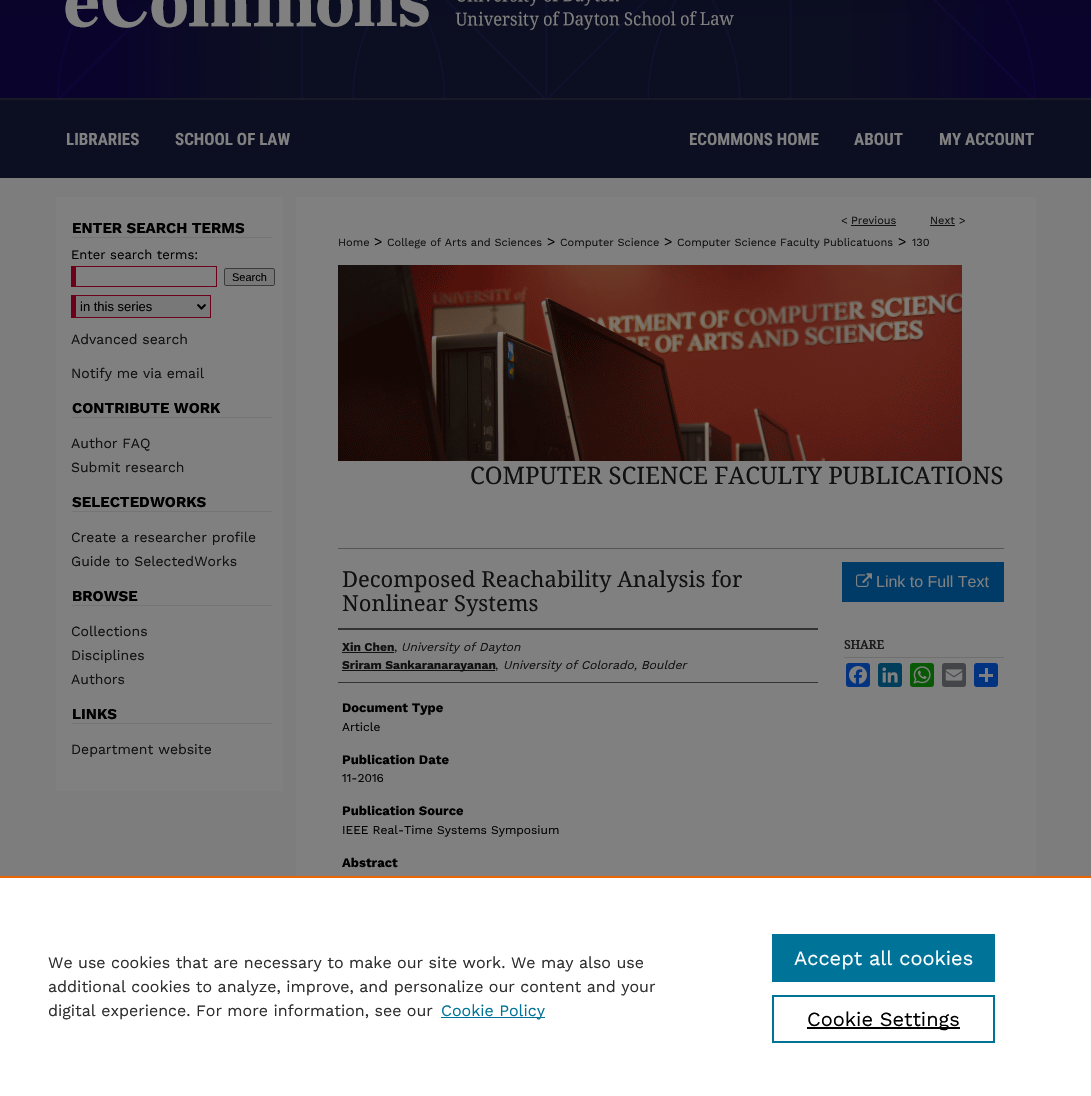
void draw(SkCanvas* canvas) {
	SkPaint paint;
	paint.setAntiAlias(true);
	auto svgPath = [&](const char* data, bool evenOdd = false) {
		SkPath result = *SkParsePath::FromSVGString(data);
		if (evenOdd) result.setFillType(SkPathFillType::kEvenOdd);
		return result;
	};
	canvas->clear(0xff7d7d7d);
	canvas->drawImageRect(SkImages::DeferredFromEncodedData(SkData::MakeFromFileName("img1.png")), SkRect::MakeXYWH(0, 0, 1091, 178), SkSamplingOptions());
	canvas->drawImageRect(SkImages::DeferredFromEncodedData(SkData::MakeFromFileName("img2.png")), SkRect::MakeXYWH(56, 0, 980, 100), SkSamplingOptions());
	SkFont f1(fontMgr->matchFamilyStyle("Roboto Condensed", SkFontStyle::Bold()), 17);
	f1.setSubpixel(true);
	paint.setColor(0xff808080);
	canvas->drawString("LIBRARIES", 66, 145, f1, paint);
	canvas->drawString("SCHOOL OF LAW", 175, 145, f1, paint);
	canvas->drawString("ECOMMONS HOME", 689, 145, f1, paint);
	canvas->drawString("ABOUT", 854, 145, f1, paint);
	canvas->drawString("MY ACCOUNT", 939, 145, f1, paint);
	canvas->drawRect(SkRect::MakeXYWH(296, 197, 740, 679), paint);
	canvas->drawRect(SkRect::MakeXYWH(56, 197, 227, 594), paint);
	paint.setColor(0xff757575);
	canvas->drawRect(SkRect::MakeXYWH(72, 237, 200, 1), paint);
	SkFont f2(fontMgr->matchFamilyStyle("Work Sans", SkFontStyle::Bold()), 15);
	f2.setSubpixel(true);
	paint.setColor(0xff000000);
	canvas->drawString("ENTER SEARCH TERMS", 72, 233, f2, paint);
	SkFont f3(fontMgr->matchFamilyStyle("Work Sans", SkFontStyle::Normal()), 13);
	f3.setSubpixel(true);
	canvas->drawString("Enter search terms:", 71, 259, f3, paint);
	paint.setColor(0xff6c001b);
	canvas->drawRect(SkRect::MakeXYWH(71, 266, 146, 1), paint);
	canvas->drawRect(SkRect::MakeXYWH(216, 266, 1, 21), paint);
	canvas->drawRect(SkRect::MakeXYWH(71, 286, 146, 1), paint);
	canvas->drawRect(SkRect::MakeXYWH(71, 266, 5, 21), paint);
	paint.setColor(0xff787878);
	canvas->drawRoundRect(SkRect::MakeXYWH(224.5, 268.5, 50, 17), 1.5, 1.5, paint);
	paint.setStroke(true);
	paint.setStrokeWidth(1);
	paint.setColor(0xff3b3b3b);
	canvas->drawRoundRect(SkRect::MakeXYWH(224.5, 268.5, 50, 17), 1.5, 1.5, paint);
	SkFont f4(fontMgr->matchFamilyStyle("Liberation Sans", SkFontStyle::Normal()), 11);
	f4.setSubpixel(true);
	paint.setStroke(false);
	paint.setColor(0xff000000);
	canvas->drawString("Search", 232, 281, f4, paint);
	paint.setColor(0xff787878);
	canvas->drawRect(SkRect::MakeXYWH(76, 296, 134, 21), paint);
	paint.setColor(0xff6c001b);
	canvas->drawRect(SkRect::MakeXYWH(71, 295, 140, 1), paint);
	canvas->drawRect(SkRect::MakeXYWH(210, 295, 1, 23), paint);
	canvas->drawRect(SkRect::MakeXYWH(71, 317, 140, 1), paint);
	canvas->drawRect(SkRect::MakeXYWH(71, 295, 5, 23), paint);
	paint.setStroke(true);
	paint.setStrokeWidth(2);
	paint.setColor(0xff000000);
	canvas->drawPath(svgPath("M197.5 304.5L201.5 308.5L205.5 304.5"), paint);
	SkFont f5(fontMgr->matchFamilyStyle("Liberation Sans", SkFontStyle::Normal()), 13);
	f5.setSubpixel(true);
	paint.setStroke(false);
	canvas->drawString("in this series", 80, 311, f5, paint);
	SkFont f6(fontMgr->matchFamilyStyle("Work Sans", SkFontStyle::Normal()), 14);
	f6.setSubpixel(true);
	paint.setColor(0xff111111);
	canvas->drawString("Advanced search", 71, 344, f6, paint);
	canvas->drawString("Notify me via email", 71, 378, f6, paint);
	paint.setColor(0xff757575);
	canvas->drawRect(SkRect::MakeXYWH(72, 417, 200, 1), paint);
	paint.setColor(0xff000000);
	canvas->drawString("CONTRIBUTE WORK", 72, 413, f2, paint);
	paint.setColor(0xff111111);
	canvas->drawString("Author FAQ", 71, 448, f6, paint);
	canvas->drawString("Submit research", 71, 472, f6, paint);
	paint.setColor(0xff757575);
	canvas->drawRect(SkRect::MakeXYWH(72, 511, 200, 1), paint);
	paint.setColor(0xff000000);
	canvas->drawString("SELECTEDWORKS", 72, 507, f2, paint);
	paint.setColor(0xff111111);
	canvas->drawString("Create a researcher profile", 71, 542, f6, paint);
	canvas->drawString("Guide to SelectedWorks", 71, 566, f6, paint);
	paint.setColor(0xff757575);
	canvas->drawRect(SkRect::MakeXYWH(72, 605, 200, 1), paint);
	paint.setColor(0xff000000);
	canvas->drawString("BROWSE", 72, 601, f2, paint);
	paint.setColor(0xff111111);
	canvas->drawString("Collections", 71, 636, f6, paint);
	canvas->drawString("Disciplines", 71, 660, f6, paint);
	canvas->drawString("Authors", 71, 684, f6, paint);
	paint.setColor(0xff757575);
	canvas->drawRect(SkRect::MakeXYWH(72, 723, 200, 1), paint);
	paint.setColor(0xff000000);
	canvas->drawString("LINKS", 72, 719, f2, paint);
	paint.setColor(0xff111111);
	canvas->drawString("Department website", 71, 754, f6, paint);
	SkFont f7(fontMgr->matchFamilyStyle("Work Sans", SkFontStyle::Normal()), 11);
	f7.setSubpixel(true);
	canvas->drawString("<", 841, 224, f7, paint);
	canvas->drawString("Previous", 851, 224, f7, paint);
	paint.setColor(0xff121212);
	canvas->drawRect(SkRect::MakeXYWH(851, 225, 45, 1), paint);
	paint.setColor(0xff111111);
	canvas->drawString("Next", 930, 224, f7, paint);
	paint.setColor(0xff121212);
	canvas->drawRect(SkRect::MakeXYWH(930, 225, 25, 1), paint);
	paint.setColor(0xff111111);
	canvas->drawString(">", 959, 224, f7, paint);
	canvas->drawString("Home", 338, 246, f7, paint);
	paint.setColor(0xff000000);
	canvas->drawString(">", 374, 246, f6, paint);
	paint.setColor(0xff111111);
	canvas->drawString("College of Arts and Sciences", 387, 246, f7, paint);
	paint.setColor(0xff000000);
	canvas->drawString(">", 547, 246, f6, paint);
	paint.setColor(0xff111111);
	canvas->drawString("Computer Science", 560, 246, f7, paint);
	paint.setColor(0xff000000);
	canvas->drawString(">", 664, 246, f6, paint);
	paint.setColor(0xff111111);
	canvas->drawString("Computer Science Faculty Publicatuons", 677, 246, f7, paint);
	paint.setColor(0xff000000);
	canvas->drawString(">", 898, 246, f6, paint);
	paint.setColor(0xff111111);
	canvas->drawString("130", 912, 246, f7, paint);
	canvas->drawImageRect(SkImages::DeferredFromEncodedData(SkData::MakeFromFileName("img3.png")), SkRect::MakeXYWH(338, 265, 624, 196), SkSamplingOptions());
	SkFont f8(fontMgr->matchFamilyStyle("Noto Serif", SkFontStyle::Normal()), 24);
	f8.setSubpixel(true);
	canvas->drawString("COMPUTER SCIENCE FACULTY PUBLICATIONS", 470, 484, f8, paint);
	paint.setColor(0xff555555);
	canvas->drawRect(SkRect::MakeXYWH(338, 548, 666, 1), paint);
	SkFont f9(fontMgr->matchFamilyStyle("Noto Serif", SkFontStyle::Normal()), 22);
	f9.setSubpixel(true);
	paint.setColor(0xff111111);
	canvas->drawString("Decomposed Reachability Analysis for", 342, 587, f9, paint);
	canvas->drawString("Nonlinear Systems", 342, 611, f9, paint);
	paint.setColor(0xff333333);
	canvas->drawRect(SkRect::MakeXYWH(338, 628, 480, 2), paint);
	canvas->drawRect(SkRect::MakeXYWH(338, 682, 480, 1), paint);
	SkFont f10(fontMgr->matchFamilyStyle("Work Sans", SkFontStyle::Bold()), 12);
	f10.setSubpixel(true);
	paint.setColor(0xff111111);
	canvas->drawString("Xin Chen", 342, 651, f10, paint);
	paint.setColor(0xff121212);
	canvas->drawRect(SkRect::MakeXYWH(342, 652, 52, 1), paint);
	SkFont f11(fontMgr->matchFamilyStyle("Work Sans", SkFontStyle::Normal()), 12);
	f11.setSubpixel(true);
	paint.setColor(0xff111111);
	canvas->drawString(",", 394, 651, f11, paint);
	SkFont f12(fontMgr->matchFamilyStyle("Work Sans", SkFontStyle::Italic()), 12);
	f12.setSubpixel(true);
	canvas->drawString("University of Dayton", 401, 651, f12, paint);
	paint.setColor(0xff121212);
	canvas->drawRect(SkRect::MakeXYWH(342, 670, 153, 1), paint);
	paint.setColor(0xff111111);
	canvas->drawString("Sriram Sankaranarayanan", 342, 669, f10, paint);
	canvas->drawString(",", 495, 669, f11, paint);
	canvas->drawString("University of Colorado, Boulder", 503, 669, f12, paint);
	SkFont f13(fontMgr->matchFamilyStyle("Work Sans", SkFontStyle::Bold()), 13);
	f13.setSubpixel(true);
	paint.setColor(0xff000000);
	canvas->drawString("Document Type", 342, 712, f13, paint);
	canvas->drawString("Article", 342, 731, f11, paint);
	canvas->drawString("Publication Date", 342, 764, f13, paint);
	canvas->drawString("11-2016", 342, 782, f11, paint);
	canvas->drawString("Publication Source", 342, 815, f13, paint);
	canvas->drawString("IEEE Real-Time Systems Symposium", 342, 834, f11, paint);
	canvas->drawString("Abstract", 342, 867, f13, paint);
	paint.setColor(0xff003a66);
	canvas->drawRect(SkRect::MakeXYWH(842, 562, 162, 40), paint);
	canvas->drawImageRect(SkImages::DeferredFromEncodedData(SkData::MakeFromFileName("img4.png")), SkRect::MakeXYWH(856, 573, 16, 14), SkSamplingOptions());
	SkFont f14(fontMgr->matchFamilyStyle("Liberation Sans", SkFontStyle::Normal()), 16);
	f14.setSubpixel(true);
	paint.setColor(0xff808080);
	canvas->drawString("Link to Full Text", 876, 587, f14, paint);
	paint.setColor(0xff6f6f6f);
	canvas->drawRect(SkRect::MakeXYWH(844, 657, 160, 1), paint);
	SkFont f15(fontMgr->matchFamilyStyle("Noto Serif", SkFontStyle::Bold()), 12);
	f15.setSubpixel(true);
	paint.setColor(0xff1a1a1a);
	canvas->drawString("SHARE", 844, 649, f15, paint);
	paint.setColor(0xff043380);
	canvas->drawRoundRect(SkRect::MakeXYWH(846, 663, 24, 24), 3, 3, paint);
	canvas->drawImageRect(SkImages::DeferredFromEncodedData(SkData::MakeFromFileName("img5.png")), SkRect::MakeXYWH(849, 666, 18, 18), SkSamplingOptions());
	paint.setColor(0xff003e5b);
	canvas->drawRoundRect(SkRect::MakeXYWH(878, 663, 24, 24), 3, 3, paint);
	canvas->drawImageRect(SkImages::DeferredFromEncodedData(SkData::MakeFromFileName("img6.png")), SkRect::MakeXYWH(882, 667, 16, 16), SkSamplingOptions());
	paint.setColor(0xff095805);
	canvas->drawRoundRect(SkRect::MakeXYWH(910, 663, 24, 24), 3, 3, paint);
	canvas->drawImageRect(SkImages::DeferredFromEncodedData(SkData::MakeFromFileName("img7.png")), SkRect::MakeXYWH(913, 666, 18, 18), SkSamplingOptions());
	paint.setColor(0xff444548);
	canvas->drawRoundRect(SkRect::MakeXYWH(942, 663, 24, 24), 3, 3, paint);
	canvas->drawImageRect(SkImages::DeferredFromEncodedData(SkData::MakeFromFileName("img8.png")), SkRect::MakeXYWH(945, 669, 18, 12), SkSamplingOptions());
	paint.setColor(0xff013380);
	canvas->drawRoundRect(SkRect::MakeXYWH(974, 663, 24, 24), 3, 3, paint);
	paint.setColor(0xff808080);
	canvas->drawRect(SkRect::MakeXYWH(985, 668, 3, 14), paint);
	canvas->drawRect(SkRect::MakeXYWH(979, 674, 14, 3), paint);
	paint.setColor(0xffffffff);
	canvas->drawRect(SkRect::MakeXYWH(0, 878, 1091, 218), paint);
	paint.setColor(0xffeb6500);
	canvas->drawRect(SkRect::MakeXYWH(0, 876, 1091, 2), paint);
	SkFont f16(fontMgr->matchFamilyStyle("Work Sans", SkFontStyle::Normal()), 16);
	f16.setSubpixel(true);
	paint.setColor(0xff2e2e2e);
	canvas->drawString("We use cookies that are necessary to make our site work. We may also use", 48, 968, f16, paint);
	canvas->drawString("additional cookies to analyze, improve, and personalize our content and your", 48, 992, f16, paint);
	canvas->drawString("digital experience. For more information, see our", 48, 1016, f16, paint);
	paint.setColor(0xff007398);
	canvas->drawRect(SkRect::MakeXYWH(441, 1017, 104, 1), paint);
	canvas->drawString("Cookie Policy", 441, 1016, f16, paint);
	canvas->drawRect(SkRect::MakeXYWH(772, 934, 223, 48), paint);
	SkFont f17(fontMgr->matchFamilyStyle("Work Sans", SkFontStyle::Normal()), 20);
	f17.setSubpixel(true);
	paint.setColor(0xffffffff);
	canvas->drawString("Accept all cookies", 794, 965, f17, paint);
	paint.setStroke(true);
	paint.setColor(0xff007398);
	canvas->drawRect(SkRect::MakeXYWH(773, 996, 221, 46), paint);
	paint.setStroke(false);
	paint.setColor(0xff000000);
	canvas->drawRect(SkRect::MakeXYWH(807, 1027, 153, 2), paint);
	canvas->drawString("Cookie Settings", 807, 1026, f17, paint);
}
